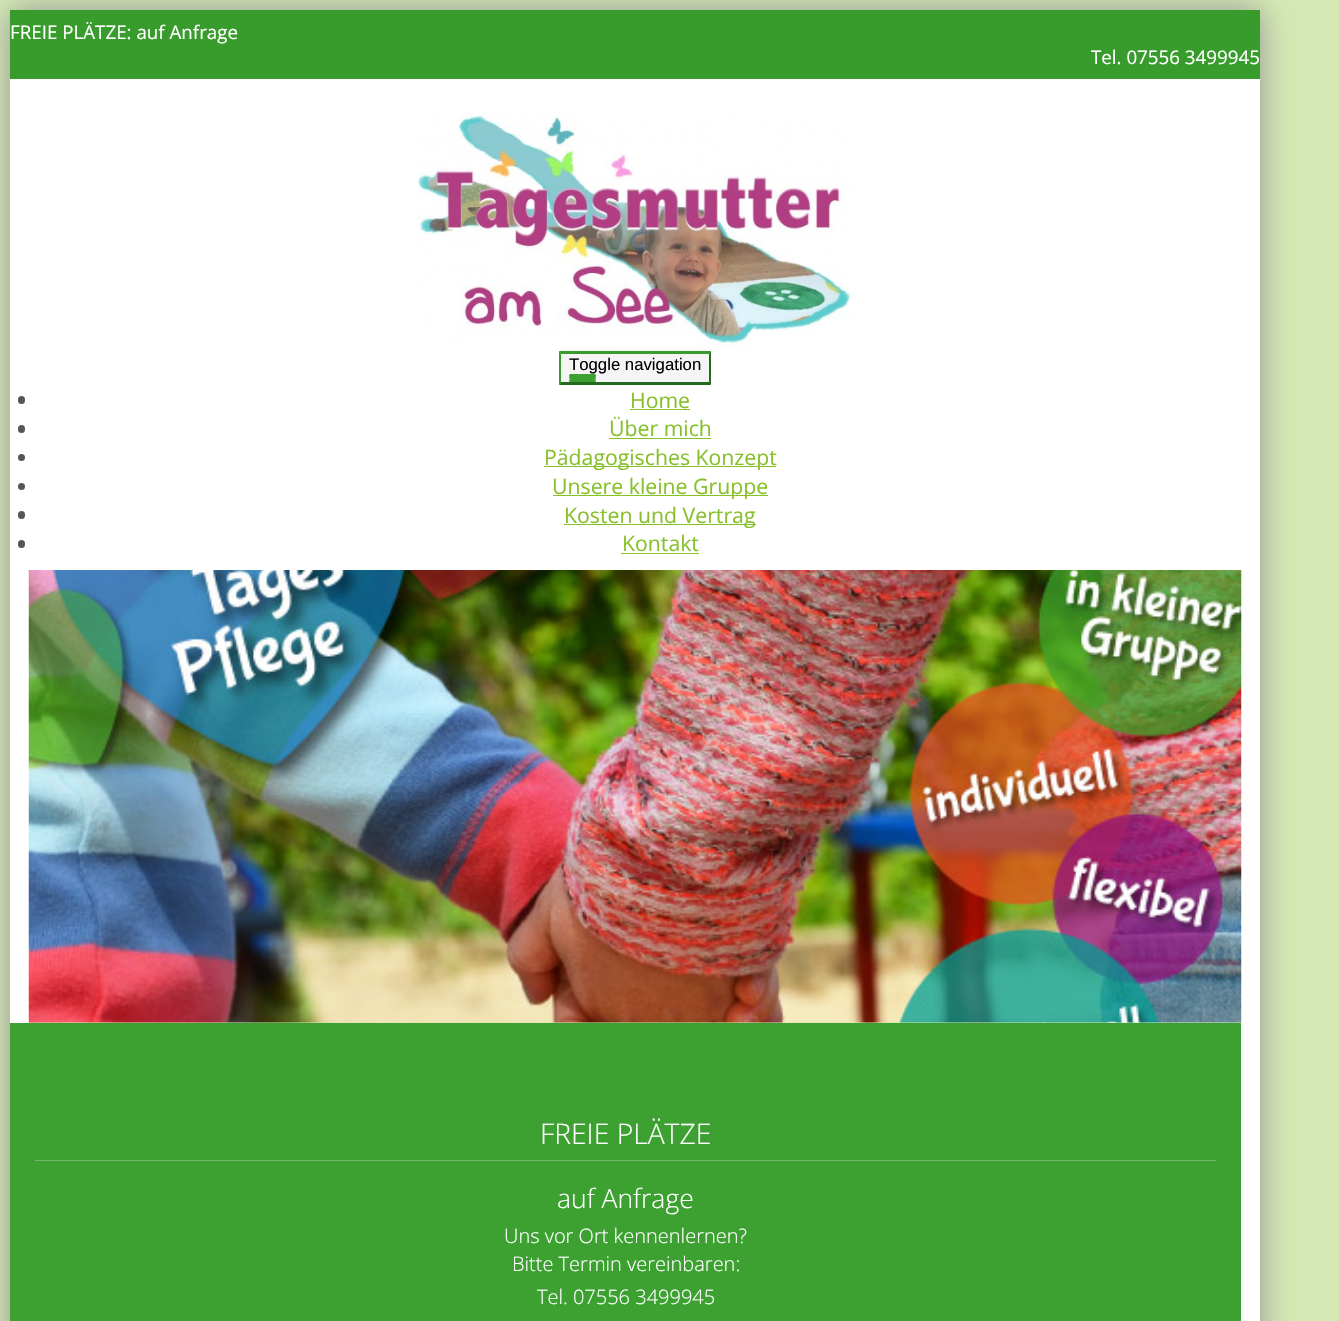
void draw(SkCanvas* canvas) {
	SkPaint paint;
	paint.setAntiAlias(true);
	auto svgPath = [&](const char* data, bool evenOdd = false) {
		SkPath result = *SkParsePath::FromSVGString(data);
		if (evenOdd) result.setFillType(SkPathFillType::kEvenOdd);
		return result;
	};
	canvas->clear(0xffd5e9b4);
	paint.setColor(0xff949494);
	paint.setMaskFilter(SkMaskFilter::MakeBlur(kNormal_SkBlurStyle, 15.5));
	canvas->drawRect(SkRect::MakeXYWH(10, 10, 1250, 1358), paint);
	paint.setMaskFilter(nullptr);
	paint.setColor(0xffffffff);
	canvas->drawRect(SkRect::MakeXYWH(10, 79, 1250, 1242), paint);
	paint.setColor(0xff389c2d);
	canvas->drawRect(SkRect::MakeXYWH(10, 10, 1250, 69), paint);
	SkFont f1(fontMgr->matchFamilyStyle("Open Sans", SkFontStyle::Normal()), 18.75);
	f1.setSubpixel(true);
	paint.setColor(0xffffffff);
	canvas->drawString("FREIE PLÄTZE: auf Anfrage", 10, 39, f1, paint);
	canvas->drawString("Tel. 07556 3499945", 1091, 64, f1, paint);
	canvas->drawImageRect(SkImages::DeferredFromEncodedData(SkData::MakeFromFileName("img1.png")), SkRect::MakeXYWH(417, 111, 435, 236), SkSamplingOptions());
	paint.setColor(0xfff5f5f5);
	canvas->drawRect(SkRect::MakeXYWH(559, 351, 152, 34), paint);
	paint.setColor(0xff389c2d);
	canvas->drawPath(svgPath("M559 351H711L709 354H561Z"), paint);
	paint.setColor(0xff25681e);
	canvas->drawPath(svgPath("M711 351V385L709 382.5V354Z"), paint);
	canvas->drawPath(svgPath("M711 385H559L561 382H709Z"), paint);
	paint.setColor(0xff389c2d);
	canvas->drawPath(svgPath("M559 385V351L561 354V382.5Z"), paint);
	SkFont f2(fontMgr->matchFamilyStyle("Liberation Sans", SkFontStyle::Normal()), 16.75);
	f2.setSubpixel(true);
	paint.setColor(0xff000000);
	canvas->drawString("Toggle navigation", 569, 370, f2, paint);
	paint.setColor(0xff3da132);
	canvas->drawRoundRect(SkRect::MakeXYWH(569, 374, 27, 3), 1.5, 1.5, paint);
	canvas->drawRoundRect(SkRect::MakeXYWH(569, 376, 27, 3), 1.5, 1.5, paint);
	canvas->drawRoundRect(SkRect::MakeXYWH(569, 379, 27, 3), 1.5, 1.5, paint);
	paint.setColor(0xff565656);
	canvas->drawRoundRect(SkRect::MakeXYWH(18, 396, 7, 8), 3.5, 3.5, paint);
	SkFont f3(fontMgr->matchFamilyStyle("Open Sans", SkFontStyle::Normal()), 21.25);
	f3.setSubpixel(true);
	paint.setColor(0xff87c029);
	canvas->drawString("Home", 630, 408, f3, paint);
	canvas->drawRect(SkRect::MakeXYWH(630, 409, 60, 1), paint);
	paint.setColor(0xff565656);
	canvas->drawRoundRect(SkRect::MakeXYWH(18, 425, 7, 8), 3.5, 3.5, paint);
	paint.setColor(0xff87c029);
	canvas->drawString("Über mich", 609, 436, f3, paint);
	canvas->drawRect(SkRect::MakeXYWH(609, 438, 102, 1), paint);
	paint.setColor(0xff565656);
	canvas->drawCircle(21.5, 457.5, 3.5, paint);
	paint.setColor(0xff87c029);
	canvas->drawRect(SkRect::MakeXYWH(544, 466, 232, 1), paint);
	canvas->drawString("Pädagogisches Konzept", 544, 465, f3, paint);
	paint.setColor(0xff565656);
	canvas->drawCircle(21.5, 486.5, 3.5, paint);
	paint.setColor(0xff87c029);
	canvas->drawRect(SkRect::MakeXYWH(553, 495, 215, 1), paint);
	canvas->drawString("Unsere kleine Gruppe", 552, 494, f3, paint);
	paint.setColor(0xff565656);
	canvas->drawRoundRect(SkRect::MakeXYWH(18, 511, 7, 8), 3.5, 3.5, paint);
	paint.setColor(0xff87c029);
	canvas->drawRect(SkRect::MakeXYWH(564, 524, 192, 1), paint);
	canvas->drawString("Kosten und Vertrag", 564, 523, f3, paint);
	paint.setColor(0xff565656);
	canvas->drawRoundRect(SkRect::MakeXYWH(18, 540, 7, 8), 3.5, 3.5, paint);
	paint.setColor(0xff87c029);
	canvas->drawString("Kontakt", 622, 551, f3, paint);
	canvas->drawRect(SkRect::MakeXYWH(621, 553, 78, 1), paint);
	paint.setColor(0xffd5e9b4);
	canvas->drawRect(SkRect::MakeXYWH(29, 1022, 1212, 1), paint);
	canvas->drawImageRect(SkImages::DeferredFromEncodedData(SkData::MakeFromFileName("img2.png")), SkRect::MakeXYWH(28, 570, 1214, 453), SkSamplingOptions());
	paint.setColor(0xff3da132);
	canvas->drawRect(SkRect::MakeXYWH(10, 1023, 1231, 298), paint);
	paint.setColor(0xff72b86a);
	canvas->drawRect(SkRect::MakeXYWH(35, 1160, 1181, 1), paint);
	SkFont f4(fontMgr->matchFamilyStyle("Open Sans", SkFontStyle(300, SkFontStyle::kNormal_Width, SkFontStyle::kUpright_Slant)), 28.25);
	f4.setSubpixel(true);
	paint.setColor(0xffffffff);
	canvas->drawString("FREIE PLÄTZE", 540, 1144, f4, paint);
	SkFont f5(fontMgr->matchFamilyStyle("Open Sans", SkFontStyle(300, SkFontStyle::kNormal_Width, SkFontStyle::kUpright_Slant)), 26.5);
	f5.setSubpixel(true);
	canvas->drawString("auf Anfrage", 557, 1208, f5, paint);
	SkFont f6(fontMgr->matchFamilyStyle("Open Sans", SkFontStyle(300, SkFontStyle::kNormal_Width, SkFontStyle::kUpright_Slant)), 20);
	f6.setSubpixel(true);
	canvas->drawString("Uns vor Ort kennenlernen?", 504, 1243, f6, paint);
	canvas->drawString("Bitte Termin vereinbaren:", 512, 1271, f6, paint);
	canvas->drawString("Tel. 07556 3499945", 537, 1304, f6, paint);
}
